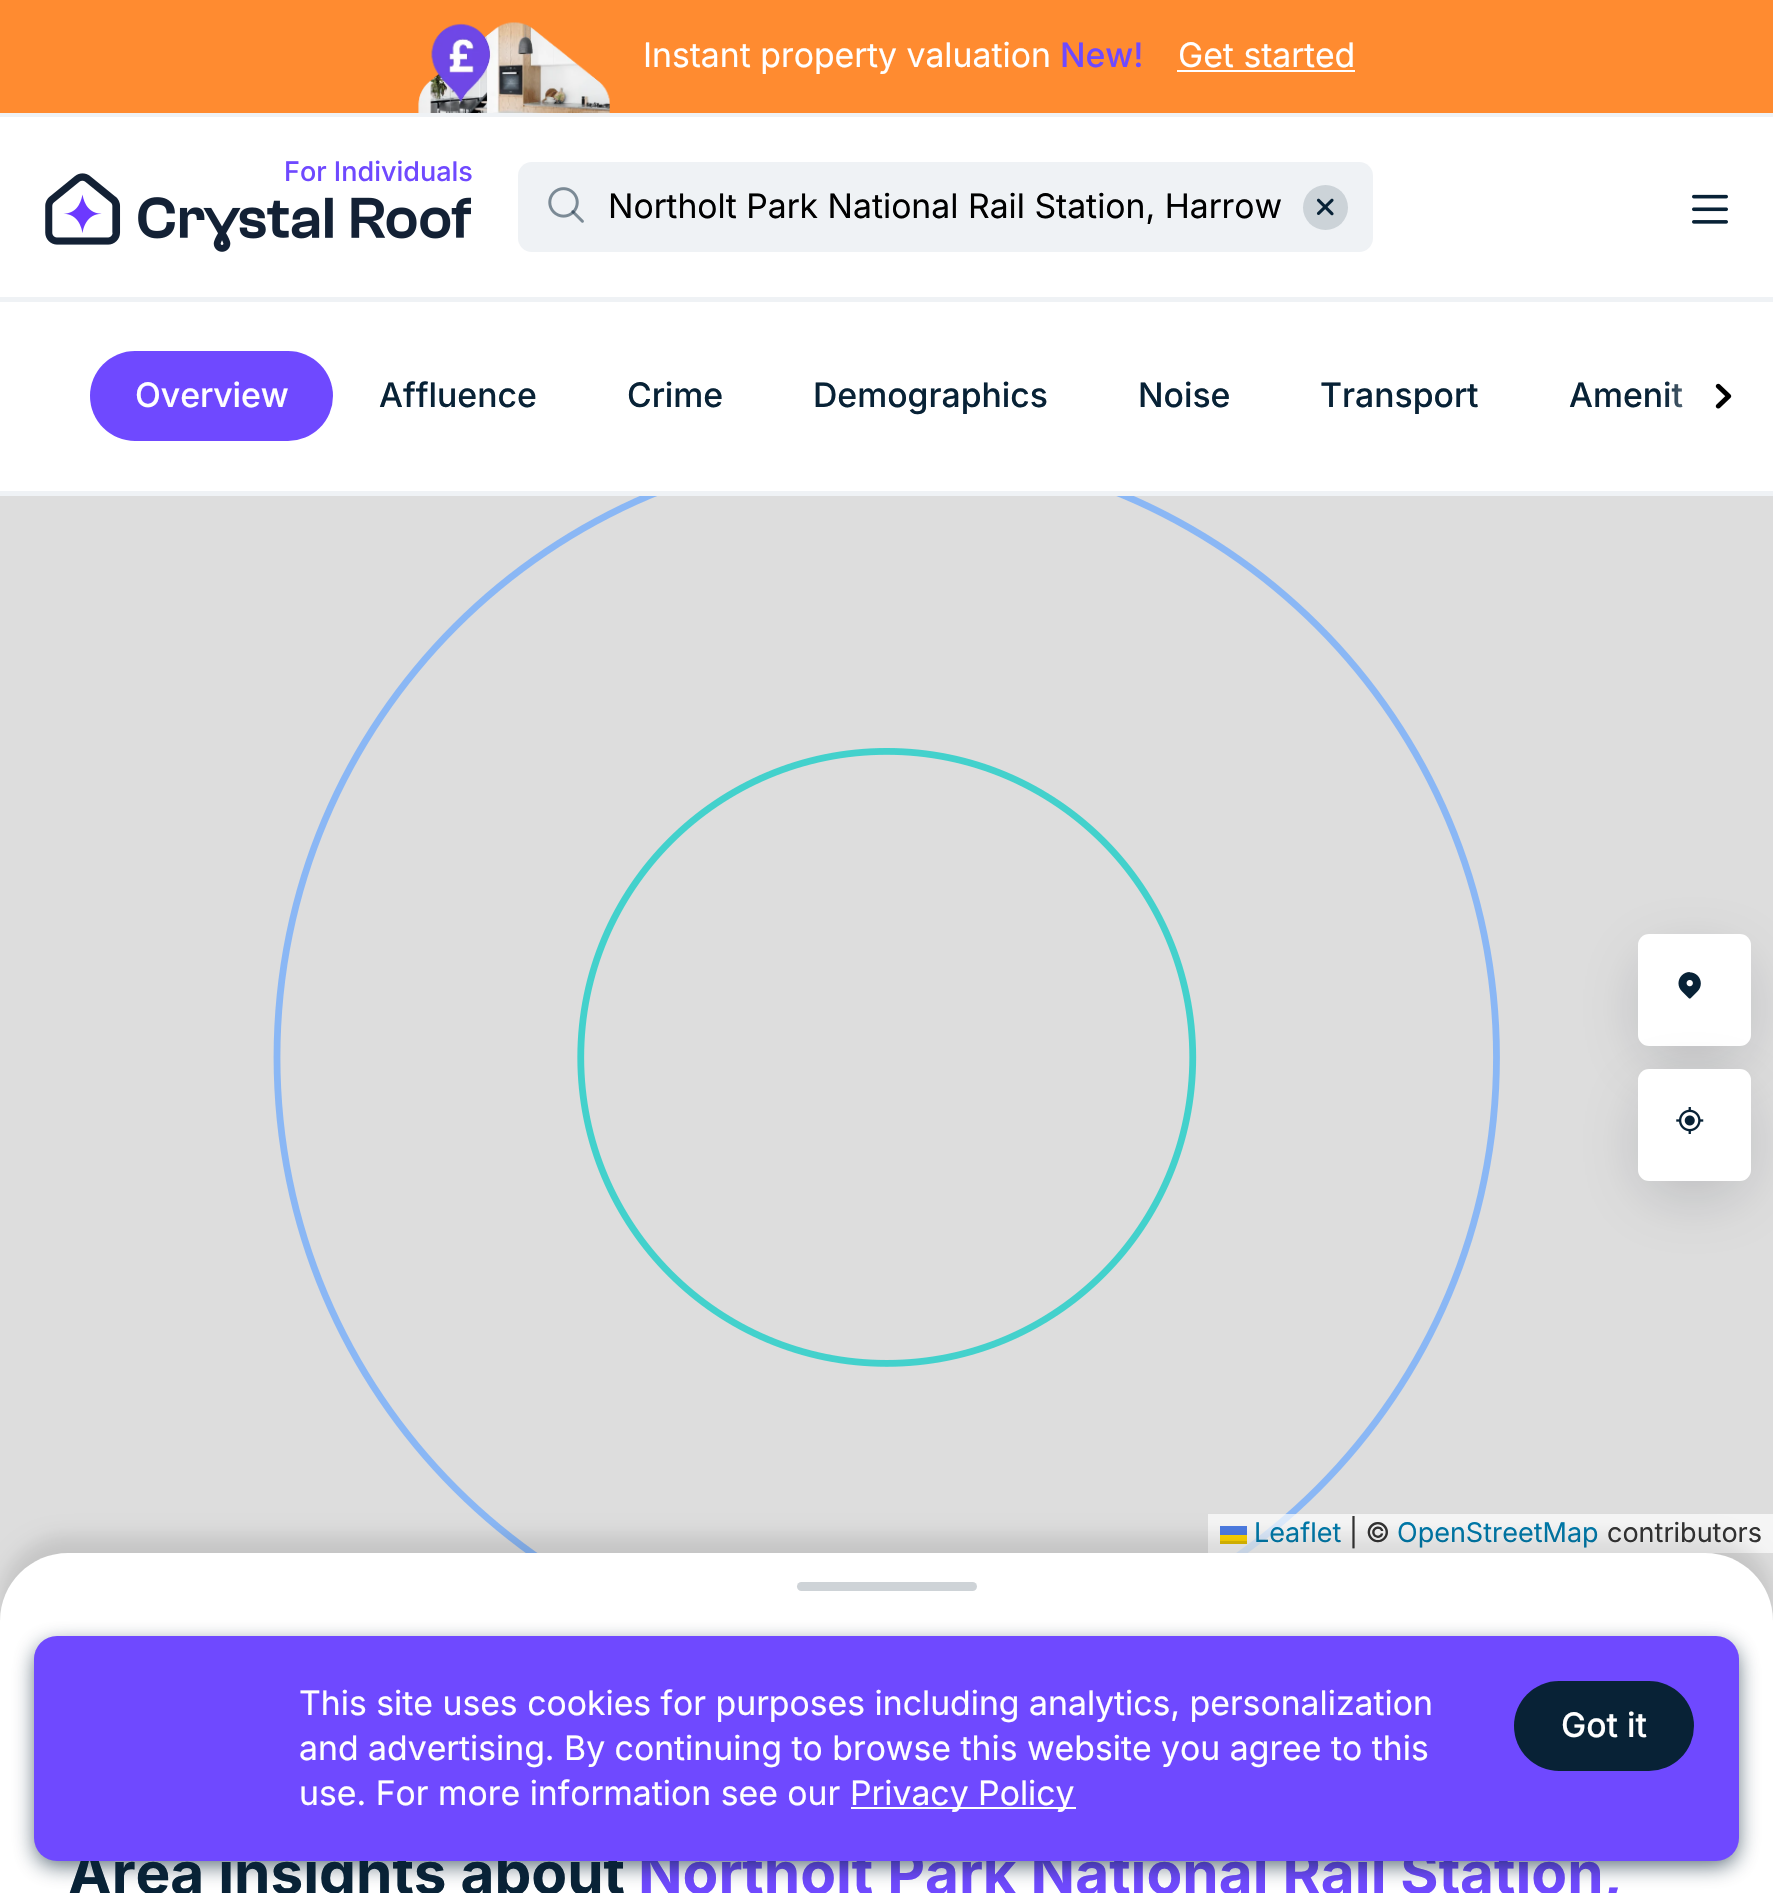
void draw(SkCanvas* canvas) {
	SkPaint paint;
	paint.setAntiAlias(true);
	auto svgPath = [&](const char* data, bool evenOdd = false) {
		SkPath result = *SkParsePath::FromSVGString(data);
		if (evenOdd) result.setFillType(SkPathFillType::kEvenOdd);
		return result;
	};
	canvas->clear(0xffffffff);
	paint.setColor(0xffff8b30);
	canvas->drawRect(SkRect::MakeXYWH(0, 0, 1773, 113), paint);
	canvas->drawImageRect(SkImages::DeferredFromEncodedData(SkData::MakeFromFileName("img1.png")), SkRect::MakeXYWH(418, 22, 192, 91), SkSamplingOptions());
	SkFont f1(fontMgr->matchFamilyStyle("Inter", SkFontStyle::Normal()), 33.75);
	f1.setSubpixel(true);
	paint.setColor(0xffffffff);
	canvas->drawString("Instant property valuation", 643, 67, f1, paint);
	SkFont f2(fontMgr->matchFamilyStyle("Inter", SkFontStyle(500, SkFontStyle::kNormal_Width, SkFontStyle::kUpright_Slant)), 33.75);
	f2.setSubpixel(true);
	paint.setColor(0xff6f49ff);
	canvas->drawString("New!", 1060, 67, f2, paint);
	paint.setColor(0xffffffff);
	canvas->drawString("Get started", 1178, 67, f1, paint);
	canvas->drawRect(SkRect::MakeXYWH(1177, 70, 178, 2), paint);
	paint.setColor(0xffeff2f5);
	canvas->drawRect(SkRect::MakeXYWH(0, 113, 1773, 4), paint);
	canvas->drawImageRect(SkImages::DeferredFromEncodedData(SkData::MakeFromFileName("img2.png")), SkRect::MakeXYWH(45, 173, 426, 79), SkSamplingOptions());
	SkFont f3(fontMgr->matchFamilyStyle("Inter", SkFontStyle(500, SkFontStyle::kNormal_Width, SkFontStyle::kUpright_Slant)), 27);
	f3.setSubpixel(true);
	paint.setColor(0xff6f49ff);
	canvas->drawString("For Individuals", 284, 181, f3, paint);
	paint.setColor(0xffeff2f5);
	canvas->drawRoundRect(SkRect::MakeXYWH(518, 162, 855, 90), 14, 14, paint);
	canvas->drawImageRect(SkImages::DeferredFromEncodedData(SkData::MakeFromFileName("img3.png")), SkRect::MakeXYWH(548, 187, 36, 36), SkSamplingOptions());
	paint.setColor(0xff000000);
	canvas->drawString("Northolt Park National Rail Station, Harrow", 608, 218, f1, paint);
	paint.setColor(0xffccd3d8);
	canvas->drawCircle(1325.5, 207.5, 22.5, paint);
	canvas->drawImageRect(SkImages::DeferredFromEncodedData(SkData::MakeFromFileName("img4.png")), SkRect::MakeXYWH(1316, 198, 18, 18), SkSamplingOptions());
	canvas->drawImageRect(SkImages::DeferredFromEncodedData(SkData::MakeFromFileName("img5.png")), SkRect::MakeXYWH(1692, 194, 36, 30), SkSamplingOptions());
	paint.setColor(0xffeff2f5);
	canvas->drawRect(SkRect::MakeXYWH(0, 297, 1773, 5), paint);
	paint.setColor(0xff6f49ff);
	canvas->drawRoundRect(SkRect::MakeXYWH(90, 351, 243, 90), 45, 45, paint);
	paint.setColor(0xffffffff);
	canvas->drawString("Overview", 135, 407, f2, paint);
	paint.setColor(0xff082236);
	canvas->drawString("Affluence", 379, 407, f2, paint);
	canvas->drawString("Crime", 627, 407, f2, paint);
	canvas->drawString("Demographics", 813, 407, f2, paint);
	canvas->drawString("Noise", 1138, 407, f2, paint);
	canvas->drawString("Transport", 1320, 407, f2, paint);
	canvas->drawString("Amenit", 1569, 407, f2, paint);
	{
		const SkColor colors[] = {0x00ffffff, 0xffffffff};
		const float stops[] = {0, 0.5};
		const SkPoint ends[] = {{1665, 396}, {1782, 396}};
		paint.setShader(SkGradientShader::MakeLinear(ends, colors, stops, 2, SkTileMode::kClamp));
		paint.setAlpha(255);
	}
	canvas->drawRect(SkRect::MakeXYWH(1666, 381, 16, 27), paint);
	canvas->drawImageRect(SkImages::DeferredFromEncodedData(SkData::MakeFromFileName("img6.png")), SkRect::MakeXYWH(1715, 383, 17, 26), SkSamplingOptions());
	paint.setShader(nullptr);
	paint.setColor(0xffeff2f5);
	canvas->drawRect(SkRect::MakeXYWH(0, 491, 1773, 5), paint);
	paint.setColor(0xffdddddd);
	canvas->drawRect(SkRect::MakeXYWH(0, 496, 1773, 1124), paint);
	paint.setColor(0x380c141e);
	paint.setMaskFilter(SkMaskFilter::MakeBlur(kNormal_SkBlurStyle, 35));
	canvas->drawRect(SkRect::MakeXYWH(1649, 963, 90, 90), paint);
	paint.setMaskFilter(nullptr);
	paint.setColor(0xffffffff);
	canvas->drawRoundRect(SkRect::MakeXYWH(1638, 934, 113, 112), 11, 11, paint);
	paint.setColor(0x380c141e);
	paint.setMaskFilter(SkMaskFilter::MakeBlur(kNormal_SkBlurStyle, 35));
	canvas->drawRect(SkRect::MakeXYWH(1649, 1098, 90, 90), paint);
	paint.setMaskFilter(nullptr);
	canvas->drawImageRect(SkImages::DeferredFromEncodedData(SkData::MakeFromFileName("img7.png")), SkRect::MakeXYWH(1678, 972, 23, 27), SkSamplingOptions());
	paint.setColor(0xffffffff);
	canvas->drawRoundRect(SkRect::MakeXYWH(1638, 1069, 113, 112), 11, 11, paint);
	canvas->drawImageRect(SkImages::DeferredFromEncodedData(SkData::MakeFromFileName("img8.png")), SkRect::MakeXYWH(1676, 1107, 28, 27), SkSamplingOptions());
	canvas->drawImageRect(SkImages::DeferredFromEncodedData(SkData::MakeFromFileName("img9.png")), SkRect::MakeXYWH(273, 496, 1227, 1057), SkSamplingOptions());
	paint.setColor(0xb3ffffff);
	canvas->drawRect(SkRect::MakeXYWH(1208, 1514, 565, 39), paint);
	SkFont f4(fontMgr->matchFamilyStyle("Inter", SkFontStyle::Normal()), 27);
	f4.setSubpixel(true);
	paint.setColor(0xff0078a8);
	canvas->drawString("Leaflet", 1254, 1542, f4, paint);
	paint.setColor(0xff4c7be1);
	canvas->drawRect(SkRect::MakeXYWH(1220, 1526, 27, 9), paint);
	paint.setColor(0xffffd500);
	canvas->drawRect(SkRect::MakeXYWH(1220, 1535, 27, 6), paint);
	paint.setColor(0xffe0bc00);
	canvas->drawRect(SkRect::MakeXYWH(1220, 1541, 27, 3), paint);
	paint.setColor(0xff333333);
	canvas->drawString("| ©", 1349, 1542, f4, paint);
	paint.setColor(0xff0078a8);
	canvas->drawString("OpenStreetMap", 1397, 1542, f4, paint);
	paint.setColor(0xff333333);
	canvas->drawString("contributors", 1607, 1542, f4, paint);
	paint.setColor(0x1a000000);
	paint.setMaskFilter(SkMaskFilter::MakeBlur(kNormal_SkBlurStyle, 9));
	canvas->drawRoundRect(SkRect::MakeXYWH(0, 1535, 1773, 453), 68, 68, paint);
	paint.setMaskFilter(nullptr);
	paint.setColor(0xffffffff);
	canvas->drawPath(svgPath("M68 1553H1705C1742.5 1553 1773 1583.5 1773 1621V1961H0V1621C0 1583.5 30.5 1553 68 1553Z"), paint);
	paint.setColor(0xffced3d7);
	canvas->drawRoundRect(SkRect::MakeXYWH(797, 1582, 180, 9), 4.5, 4.5, paint);
	SkFont f5(fontMgr->matchFamilyStyle("Inter", SkFontStyle::Bold()), 58.5);
	f5.setSubpixel(true);
	paint.setColor(0xff082236);
	canvas->drawString("Area insights about", 68, 1894, f5, paint);
	paint.setColor(0xff6f49ff);
	canvas->drawString("Northolt Park National Rail Station,", 638, 1894, f5, paint);
	paint.setColor(0xb3082236);
	paint.setMaskFilter(SkMaskFilter::MakeBlur(kNormal_SkBlurStyle, 11));
	canvas->drawRoundRect(SkRect::MakeXYWH(36, 1645, 1701, 220), 20, 20, paint);
	paint.setMaskFilter(nullptr);
	paint.setColor(0xff6f49ff);
	canvas->drawRoundRect(SkRect::MakeXYWH(34, 1636, 1705, 225), 23, 23, paint);
	paint.setColor(0xffffffff);
	canvas->drawString("This site uses cookies for purposes including analytics, personalization", 299, 1715, f1, paint);
	canvas->drawString("and advertising. By continuing to browse this website you agree to this", 299, 1760, f1, paint);
	canvas->drawString("use. For more information see our", 299, 1805, f1, paint);
	canvas->drawRect(SkRect::MakeXYWH(851, 1807, 225, 2), paint);
	canvas->drawString("Privacy Policy", 850, 1805, f1, paint);
	paint.setColor(0xff082236);
	canvas->drawRoundRect(SkRect::MakeXYWH(1514, 1681, 180, 90), 45, 45, paint);
	paint.setColor(0xffffffff);
	canvas->drawString("Got it", 1561, 1737, f2, paint);
}
